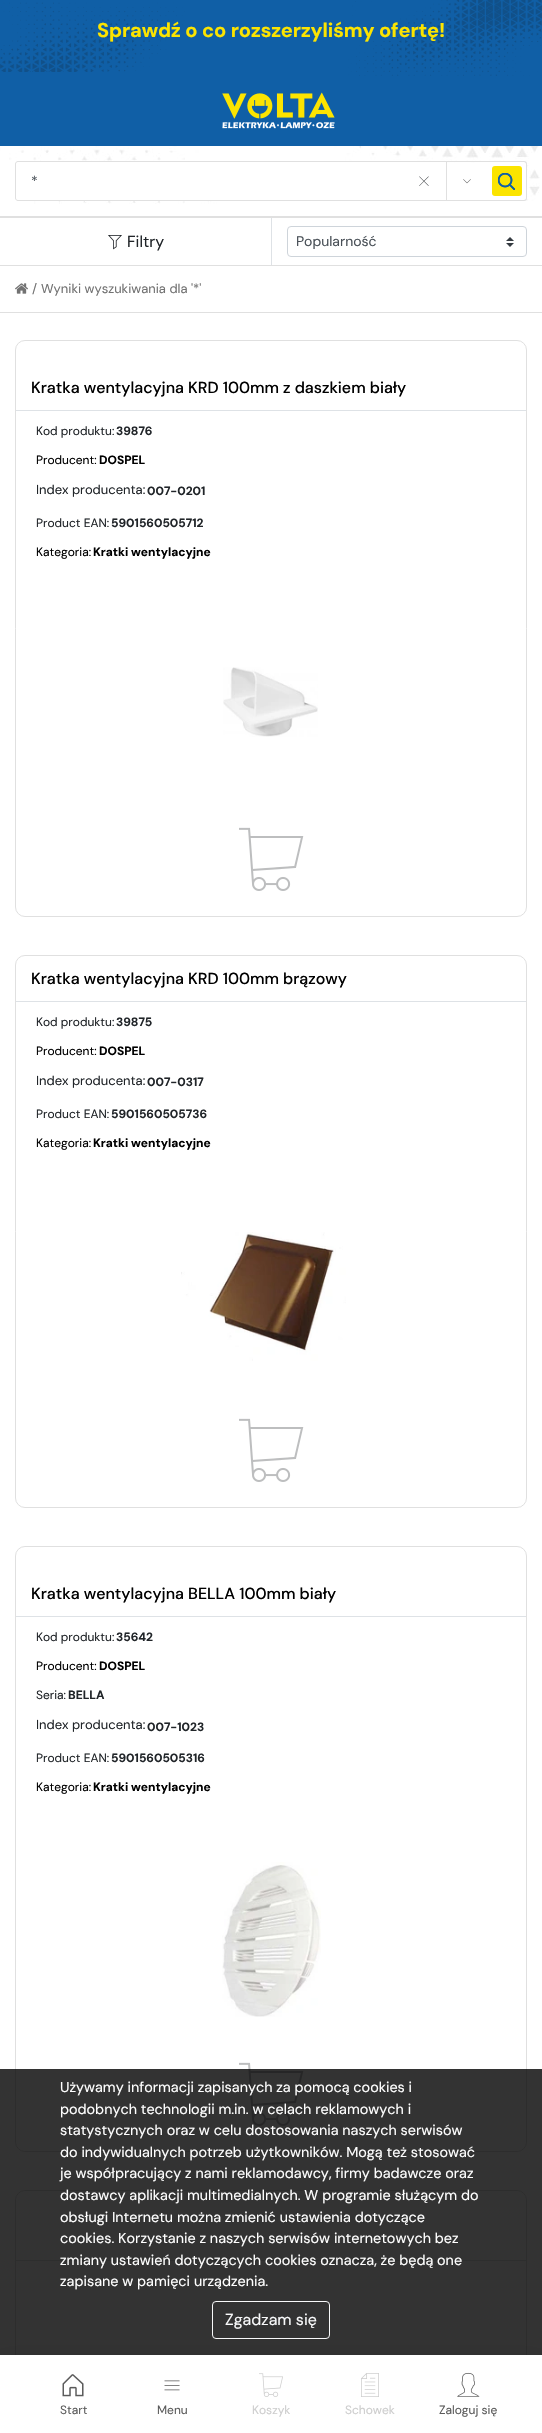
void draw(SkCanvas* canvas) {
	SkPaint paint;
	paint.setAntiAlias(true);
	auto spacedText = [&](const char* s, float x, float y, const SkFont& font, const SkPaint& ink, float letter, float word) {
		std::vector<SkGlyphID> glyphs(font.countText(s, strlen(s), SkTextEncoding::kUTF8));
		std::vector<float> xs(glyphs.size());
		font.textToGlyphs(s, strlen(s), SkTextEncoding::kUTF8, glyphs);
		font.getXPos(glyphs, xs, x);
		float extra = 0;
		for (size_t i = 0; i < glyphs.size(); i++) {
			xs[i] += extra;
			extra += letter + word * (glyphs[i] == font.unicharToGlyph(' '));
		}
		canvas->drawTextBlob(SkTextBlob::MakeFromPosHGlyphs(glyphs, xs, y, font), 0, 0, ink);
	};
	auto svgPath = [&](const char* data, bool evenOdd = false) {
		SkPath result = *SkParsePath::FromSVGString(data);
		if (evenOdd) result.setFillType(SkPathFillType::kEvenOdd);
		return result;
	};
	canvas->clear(0xffffffff);
	paint.setColor(0xff105fa6);
	canvas->drawRect(SkRect::MakeXYWH(0, 0, 542, 146), paint);
	canvas->drawImageRect(SkImages::DeferredFromEncodedData(SkData::MakeFromFileName("img1.png")), SkRect::MakeXYWH(0, 0, 542, 76), SkSamplingOptions());
	SkFont f1(fontMgr->matchFamilyStyle("DM Sans", SkFontStyle::Bold()), 20);
	f1.setSubpixel(true);
	paint.setColor(0xfffce400);
	spacedText("Sprawdź o co rozszerzyliśmy ofertę!", 97, 37, f1, paint, -0.1, 0);
	canvas->drawImageRect(SkImages::DeferredFromEncodedData(SkData::MakeFromFileName("img2.png")), SkRect::MakeXYWH(0, 146, 540, 58), SkSamplingOptions());
	canvas->drawImageRect(SkImages::DeferredFromEncodedData(SkData::MakeFromFileName("img3.png")), SkRect::MakeXYWH(222, 92, 113, 37), SkSamplingOptions());
	paint.setColor(0xffffffff);
	canvas->drawPath(svgPath("M18 161.5H446.5V200.5H18C16.5 200.5 15.5 199.5 15.5 198V164C15.5 162.5 16.5 161.5 18 161.5Z"), paint);
	paint.setStroke(true);
	paint.setStrokeWidth(1);
	paint.setColor(0xffe0e0e0);
	canvas->drawPath(svgPath("M18 161.5H446.5V200.5H18C16.5 200.5 15.5 199.5 15.5 198V164C15.5 162.5 16.5 161.5 18 161.5Z"), paint);
	SkFont f2(fontMgr->matchFamilyStyle("DM Sans", SkFontStyle::Normal()), 14);
	f2.setSubpixel(true);
	paint.setStroke(false);
	paint.setColor(0xff495057);
	canvas->drawString("*", 31, 186, f2, paint);
	canvas->drawImageRect(SkImages::DeferredFromEncodedData(SkData::MakeFromFileName("img4.png")), SkRect::MakeXYWH(419, 176, 10, 10), SkSamplingOptions());
	paint.setColor(0xffffffff);
	canvas->drawRect(SkRect::MakeXYWH(447, 163, 40, 37), paint);
	paint.setColor(0xffe0e0e0);
	canvas->drawRect(SkRect::MakeXYWH(446, 161, 41, 1), paint);
	canvas->drawRect(SkRect::MakeXYWH(446, 200, 41, 1), paint);
	canvas->drawImageRect(SkImages::DeferredFromEncodedData(SkData::MakeFromFileName("img5.png")), SkRect::MakeXYWH(463, 179, 8, 5), SkSamplingOptions());
	paint.setColor(0xffffffff);
	canvas->drawPath(svgPath("M487 161H524C525.5 161 527 162.5 527 164V198C527 199.5 525.5 201 524 201H487Z"), paint);
	paint.setColor(0xffe0e0e0);
	canvas->drawPath(svgPath("M487 161H524C526 161 527 162 527 164V198C527 200 526 201 524 201H487ZM487 162H524C525 162 526 163 526 164V198C526 199 525 200 524 200H487Z", true), paint);
	paint.setColor(0xfffbe400);
	canvas->drawRoundRect(SkRect::MakeXYWH(492, 166, 30, 30), 3, 3, paint);
	canvas->drawImageRect(SkImages::DeferredFromEncodedData(SkData::MakeFromFileName("img6.png")), SkRect::MakeXYWH(498, 173, 17, 17), SkSamplingOptions());
	paint.setColor(0xffe0e0e0);
	canvas->drawRect(SkRect::MakeXYWH(0, 216, 542, 2), paint);
	canvas->drawRect(SkRect::MakeXYWH(0, 265, 542, 1), paint);
	canvas->drawImageRect(SkImages::DeferredFromEncodedData(SkData::MakeFromFileName("img7.png")), SkRect::MakeXYWH(108, 235, 14, 15), SkSamplingOptions());
	SkFont f3(fontMgr->matchFamilyStyle("DM Sans", SkFontStyle::Normal()), 16);
	f3.setSubpixel(true);
	paint.setColor(0xff212529);
	canvas->drawString("Filtry", 127, 247, f3, paint);
	paint.setColor(0xffdee2e6);
	canvas->drawRect(SkRect::MakeXYWH(271, 218, 1, 47), paint);
	canvas->drawImageRect(SkImages::DeferredFromEncodedData(SkData::MakeFromFileName("img8.png")), SkRect::MakeXYWH(506, 237, 8, 10), SkSamplingOptions());
	paint.setStroke(true);
	paint.setColor(0xffced4da);
	canvas->drawRoundRect(SkRect::MakeXYWH(287.5, 226.5, 239, 30), 3.5, 3.5, paint);
	paint.setStroke(false);
	paint.setColor(0xff495057);
	canvas->drawString("Popularność", 296, 246, f2, paint);
	canvas->drawImageRect(SkImages::DeferredFromEncodedData(SkData::MakeFromFileName("img9.png")), SkRect::MakeXYWH(15, 283, 13, 11), SkSamplingOptions());
	SkFont f4(fontMgr->matchFamilyStyle("DM Sans", SkFontStyle::Normal()), 13);
	f4.setSubpixel(true);
	paint.setColor(0xff727272);
	canvas->drawString("/", 32, 293, f4, paint);
	canvas->drawString("Wyniki wyszukiwania dla '*'", 41, 293, f4, paint);
	paint.setColor(0xffe0e0e0);
	canvas->drawRect(SkRect::MakeXYWH(0, 312, 542, 1), paint);
	paint.setStroke(true);
	canvas->drawRoundRect(SkRect::MakeXYWH(15.5, 340.5, 511, 576), 9.5, 9.5, paint);
	paint.setStroke(false);
	paint.setColor(0xffdee2e6);
	canvas->drawRect(SkRect::MakeXYWH(16, 410, 510, 1), paint);
	SkFont f5(fontMgr->matchFamilyStyle("DM Sans", SkFontStyle(500, SkFontStyle::kNormal_Width, SkFontStyle::kUpright_Slant)), 16);
	f5.setSubpixel(true);
	paint.setColor(0xff000000);
	canvas->drawString("Kratka wentylacyjna KRD 100mm z daszkiem biały", 31, 393, f5, paint);
	SkFont f6(fontMgr->matchFamilyStyle("DM Sans", SkFontStyle::Normal()), 12);
	f6.setSubpixel(true);
	paint.setColor(0xff212529);
	canvas->drawString("Kod produktu:", 36, 435, f6, paint);
	SkFont f7(fontMgr->matchFamilyStyle("DM Sans", SkFontStyle::Bold()), 12);
	f7.setSubpixel(true);
	canvas->drawString("39876", 116, 435, f7, paint);
	paint.setColor(0xff000000);
	canvas->drawString("Producent:", 36, 464, f6, paint);
	canvas->drawString("DOSPEL", 99, 464, f7, paint);
	paint.setColor(0xff212529);
	canvas->drawString("Index producenta:", 36, 494, f4, paint);
	canvas->drawString("007-0201", 147, 495, f7, paint);
	canvas->drawString("Product EAN:", 36, 527, f6, paint);
	canvas->drawString("5901560505712", 111, 527, f7, paint);
	paint.setColor(0xff000000);
	canvas->drawString("Kategoria:", 36, 556, f6, paint);
	canvas->drawString("Kratki wentylacyjne", 93, 556, f7, paint);
	canvas->drawImageRect(SkImages::DeferredFromEncodedData(SkData::MakeFromFileName("img10.png")), SkRect::MakeXYWH(223, 667, 95, 70), SkSamplingOptions());
	canvas->drawImageRect(SkImages::DeferredFromEncodedData(SkData::MakeFromFileName("img11.png")), SkRect::MakeXYWH(239, 827, 65, 64), SkSamplingOptions());
	paint.setStroke(true);
	paint.setColor(0xffe0e0e0);
	canvas->drawRoundRect(SkRect::MakeXYWH(15.5, 955.5, 511, 552), 9.5, 9.5, paint);
	paint.setStroke(false);
	paint.setColor(0xffdee2e6);
	canvas->drawRect(SkRect::MakeXYWH(16, 1001, 510, 1), paint);
	paint.setColor(0xff000000);
	canvas->drawString("Kratka wentylacyjna KRD 100mm brązowy", 31, 984, f5, paint);
	paint.setColor(0xff212529);
	canvas->drawString("Kod produktu:", 36, 1026, f6, paint);
	canvas->drawString("39875", 116, 1026, f7, paint);
	paint.setColor(0xff000000);
	canvas->drawString("Producent:", 36, 1055, f6, paint);
	canvas->drawString("DOSPEL", 99, 1055, f7, paint);
	paint.setColor(0xff212529);
	canvas->drawString("Index producenta:", 36, 1085, f4, paint);
	canvas->drawString("007-0317", 147, 1086, f7, paint);
	canvas->drawString("Product EAN:", 36, 1118, f6, paint);
	canvas->drawString("5901560505736", 111, 1118, f7, paint);
	paint.setColor(0xff000000);
	canvas->drawString("Kategoria:", 36, 1147, f6, paint);
	canvas->drawString("Kratki wentylacyjne", 93, 1147, f7, paint);
	canvas->drawImageRect(SkImages::DeferredFromEncodedData(SkData::MakeFromFileName("img12.png")), SkRect::MakeXYWH(181, 1232, 165, 129), SkSamplingOptions());
	canvas->drawImageRect(SkImages::DeferredFromEncodedData(SkData::MakeFromFileName("img11.png")), SkRect::MakeXYWH(239, 1418, 65, 64), SkSamplingOptions());
	paint.setStroke(true);
	paint.setColor(0xffe0e0e0);
	canvas->drawRoundRect(SkRect::MakeXYWH(15.5, 1546.5, 511, 605), 9.5, 9.5, paint);
	paint.setStroke(false);
	paint.setColor(0xffdee2e6);
	canvas->drawRect(SkRect::MakeXYWH(16, 1616, 510, 1), paint);
	paint.setColor(0xff000000);
	canvas->drawString("Kratka wentylacyjna BELLA 100mm biały", 31, 1599, f5, paint);
	paint.setColor(0xff212529);
	canvas->drawString("Kod produktu:", 36, 1641, f6, paint);
	canvas->drawString("35642", 116, 1641, f7, paint);
	paint.setColor(0xff000000);
	canvas->drawString("Producent:", 36, 1670, f6, paint);
	canvas->drawString("DOSPEL", 99, 1670, f7, paint);
	paint.setColor(0xff212529);
	canvas->drawString("Seria:", 36, 1699, f6, paint);
	canvas->drawString("BELLA", 68, 1699, f7, paint);
	canvas->drawString("Index producenta:", 36, 1729, f4, paint);
	canvas->drawString("007-1023", 147, 1731, f7, paint);
	canvas->drawString("Product EAN:", 36, 1762, f6, paint);
	canvas->drawString("5901560505316", 111, 1762, f7, paint);
	paint.setColor(0xff000000);
	canvas->drawString("Kategoria:", 36, 1791, f6, paint);
	canvas->drawString("Kratki wentylacyjne", 93, 1791, f7, paint);
	canvas->drawImageRect(SkImages::DeferredFromEncodedData(SkData::MakeFromFileName("img13.png")), SkRect::MakeXYWH(222, 1862, 99, 155), SkSamplingOptions());
	canvas->drawImageRect(SkImages::DeferredFromEncodedData(SkData::MakeFromFileName("img11.png")), SkRect::MakeXYWH(239, 2062, 65, 64), SkSamplingOptions());
	paint.setStroke(true);
	paint.setColor(0xffe0e0e0);
	canvas->drawRoundRect(SkRect::MakeXYWH(15.5, 2190.5, 511, 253), 9.5, 9.5, paint);
	paint.setStroke(false);
	paint.setColor(0xffdee2e6);
	canvas->drawRect(SkRect::MakeXYWH(16, 2260, 510, 1), paint);
	paint.setColor(0xcc000000);
	canvas->drawRect(SkRect::MakeXYWH(0, 2069, 542, 286), paint);
	SkFont f8(fontMgr->matchFamilyStyle("DM Sans", SkFontStyle::Normal()), 14.4);
	f8.setSubpixel(true);
	paint.setColor(0xffffffff);
	canvas->drawString("Używamy informacji zapisanych za pomocą cookies i", 60, 2092, f8, paint);
	canvas->drawString("podobnych technologii m.in. w celach reklamowych i", 60, 2114, f8, paint);
	canvas->drawString("statystycznych oraz w celu dostosowania naszych serwisów", 60, 2135, f8, paint);
	canvas->drawString("do indywidualnych potrzeb użytkowników. Mogą też stosować", 60, 2157, f8, paint);
	canvas->drawString("je współpracujący z nami reklamodawcy, firmy badawcze oraz", 60, 2178, f8, paint);
	canvas->drawString("dostawcy aplikacji multimedialnych. W programie służącym do", 60, 2200, f8, paint);
	canvas->drawString("obsługi Internetu można zmienić ustawienia dotyczące", 60, 2222, f8, paint);
	canvas->drawString("cookies. Korzystanie z naszych serwisów internetowych bez", 60, 2243, f8, paint);
	canvas->drawString("zmiany ustawień dotyczących cookies oznacza, że będą one", 60, 2265, f8, paint);
	canvas->drawString("zapisane w pamięci urządzenia.", 60, 2286, f8, paint);
	paint.setStroke(true);
	paint.setColor(0xfff8f9fa);
	canvas->drawRoundRect(SkRect::MakeXYWH(212.5, 2301.5, 117, 37), 3.5, 3.5, paint);
	paint.setStroke(false);
	canvas->drawString("Zgadzam się", 225, 2325, f3, paint);
	paint.setColor(0x40000000);
	paint.setMaskFilter(SkMaskFilter::MakeBlur(kNormal_SkBlurStyle, 14));
	canvas->drawRect(SkRect::MakeXYWH(0, 2369, 542, 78), paint);
	paint.setMaskFilter(nullptr);
	paint.setColor(0xffffffff);
	canvas->drawRect(SkRect::MakeXYWH(0, 2355, 542, 78), paint);
	canvas->drawImageRect(SkImages::DeferredFromEncodedData(SkData::MakeFromFileName("img14.png")), SkRect::MakeXYWH(62, 2374, 22, 23), SkSamplingOptions());
	paint.setColor(0xff5b5b5b);
	canvas->drawString("Start", 60, 2414, f6, paint);
	canvas->drawImageRect(SkImages::DeferredFromEncodedData(SkData::MakeFromFileName("img15.png")), SkRect::MakeXYWH(164, 2380, 16, 11), SkSamplingOptions());
	canvas->drawString("Menu", 157, 2414, f6, paint);
	canvas->drawImageRect(SkImages::DeferredFromEncodedData(SkData::MakeFromFileName("img16.png")), SkRect::MakeXYWH(259, 2373, 24, 24), SkSamplingOptions());
	paint.setColor(0xffcecece);
	canvas->drawString("Koszyk", 252, 2414, f6, paint);
	canvas->drawImageRect(SkImages::DeferredFromEncodedData(SkData::MakeFromFileName("img17.png")), SkRect::MakeXYWH(361, 2373, 18, 24), SkSamplingOptions());
	canvas->drawString("Schowek", 345, 2414, f6, paint);
	canvas->drawImageRect(SkImages::DeferredFromEncodedData(SkData::MakeFromFileName("img18.png")), SkRect::MakeXYWH(457, 2372, 23, 25), SkSamplingOptions());
	paint.setColor(0xff5b5b5b);
	canvas->drawString("Zaloguj się", 439, 2414, f6, paint);
}
